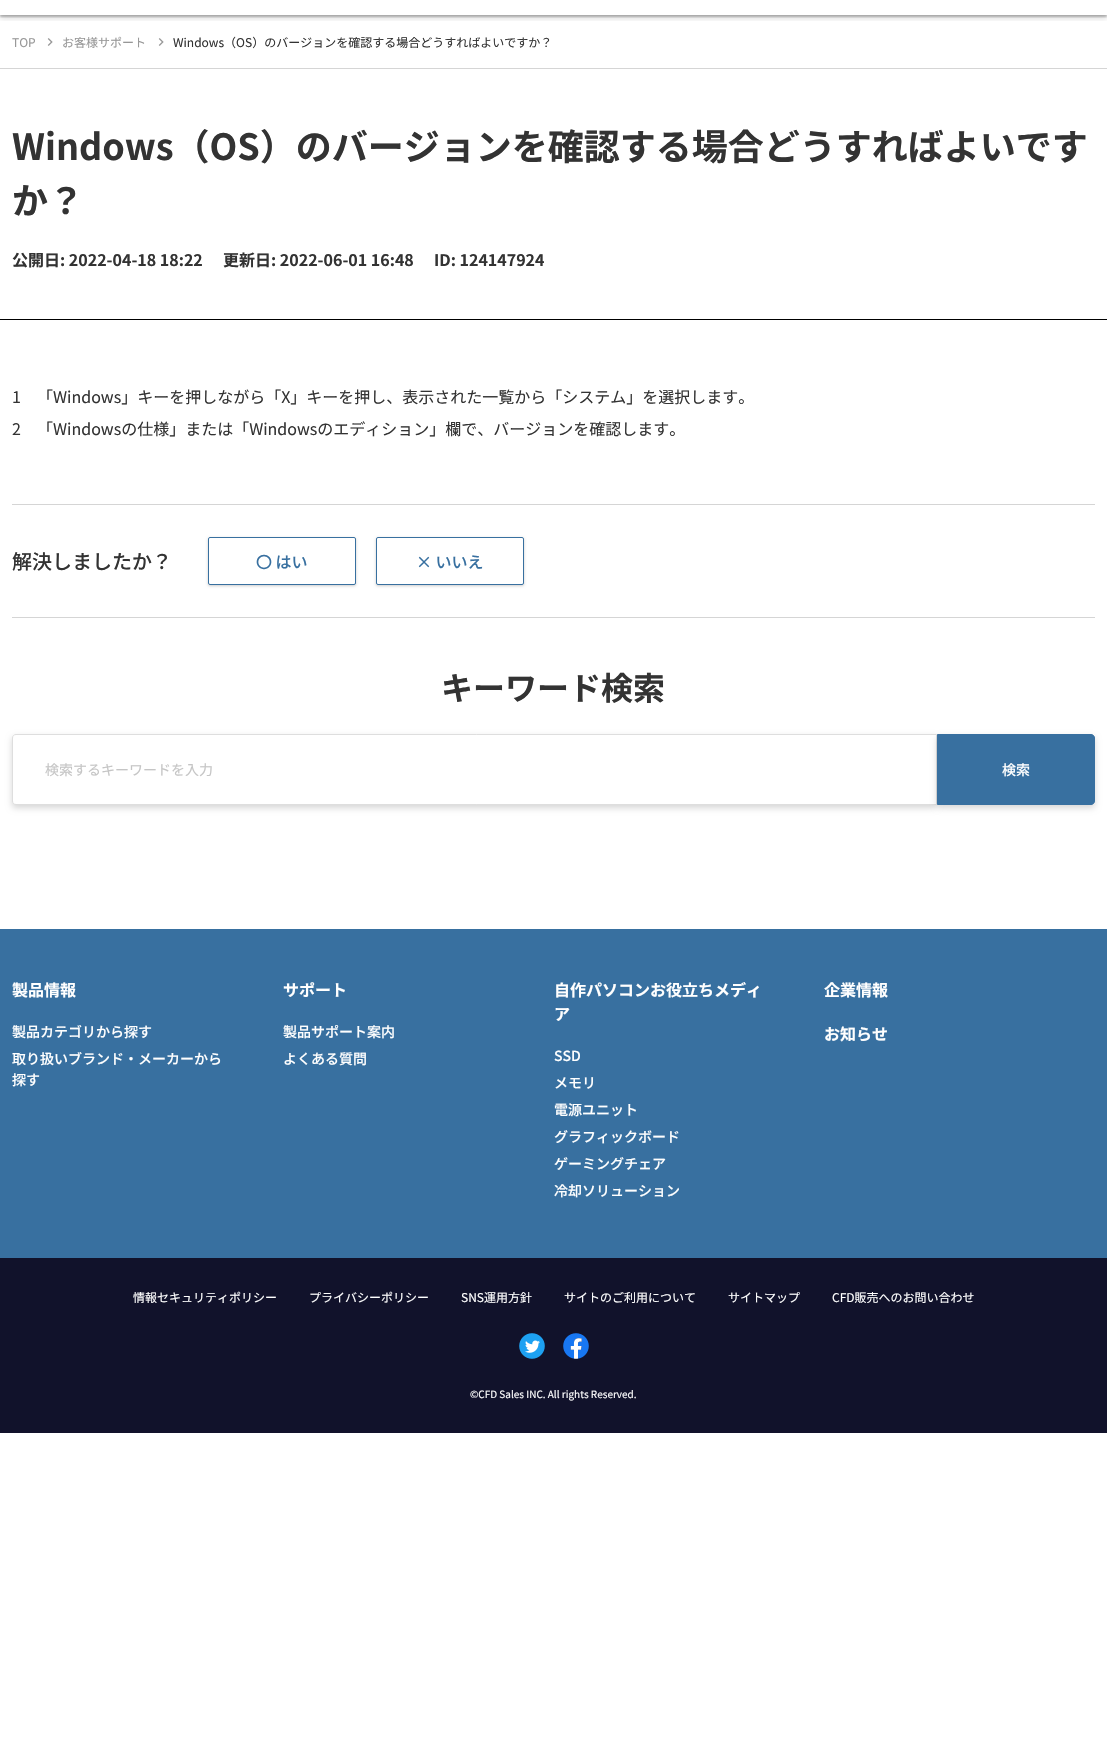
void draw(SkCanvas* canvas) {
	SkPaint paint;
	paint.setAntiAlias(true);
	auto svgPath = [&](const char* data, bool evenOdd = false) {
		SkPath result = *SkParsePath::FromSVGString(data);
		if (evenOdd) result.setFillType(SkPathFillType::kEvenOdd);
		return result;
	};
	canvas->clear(0xffffffff);
	canvas->save();
	canvas->clipRect(SkRect::MakeXYWH(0, 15, 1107, 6));
	paint.setColor(0x29000000);
	paint.setMaskFilter(SkMaskFilter::MakeBlur(kNormal_SkBlurStyle, 3));
	canvas->drawRect(SkRect::MakeXYWH(0, -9, 1107, 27), paint);
	paint.setMaskFilter(nullptr);
	canvas->restore();
	canvas->save();
	canvas->clipRect(SkRect::MakeXYWH(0, 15, 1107, 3));
	paint.setColor(0x3d000000);
	paint.setMaskFilter(SkMaskFilter::MakeBlur(kNormal_SkBlurStyle, 1));
	canvas->drawRect(SkRect::MakeXYWH(0, -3, 1107, 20), paint);
	paint.setMaskFilter(nullptr);
	canvas->restore();
	SkFont f1(fontMgr->matchFamilyStyle("Noto Sans JP", SkFontStyle::Normal()), 12);
	f1.setSubpixel(true);
	paint.setColor(0xff979797);
	canvas->drawString("TOP", 12, 47, f1, paint);
	canvas->drawImageRect(SkImages::DeferredFromEncodedData(SkData::MakeFromFileName("img1.png")), SkRect::MakeXYWH(47, 38, 6, 8), SkSamplingOptions());
	canvas->drawString("お客様サポート", 62, 47, f1, paint);
	canvas->drawImageRect(SkImages::DeferredFromEncodedData(SkData::MakeFromFileName("img1.png")), SkRect::MakeXYWH(158, 38, 6, 8), SkSamplingOptions());
	paint.setColor(0xff333333);
	canvas->drawString("Windows（OS）のバージョンを確認する場合どうすればよいですか？", 173, 47, f1, paint);
	paint.setColor(0xffd5d5d5);
	canvas->drawRect(SkRect::MakeXYWH(0, 68, 1107, 1), paint);
	paint.setColor(0xff000000);
	canvas->drawRect(SkRect::MakeXYWH(0, 319, 1107, 1), paint);
	SkFont f2(fontMgr->matchFamilyStyle("Noto Sans JP", SkFontStyle::Bold()), 36);
	f2.setSubpixel(true);
	paint.setColor(0xff333333);
	canvas->drawString("Windows（OS）のバージョンを確認する場合どうすればよいです", 12, 160, f2, paint);
	canvas->drawString("か？", 12, 214, f2, paint);
	SkFont f3(fontMgr->matchFamilyStyle("Noto Sans JP", SkFontStyle::Bold()), 16);
	f3.setSubpixel(true);
	canvas->drawString("公開日: 2022-04-18 18:22", 12, 266, f3, paint);
	canvas->drawString("更新日: 2022-06-01 16:48", 223, 266, f3, paint);
	canvas->drawString("ID: 124147924", 434, 266, f3, paint);
	SkFont f4(fontMgr->matchFamilyStyle("Noto Sans JP", SkFontStyle::Normal()), 16);
	f4.setSubpixel(true);
	canvas->drawString("1", 12, 403, f4, paint);
	canvas->drawString("「Windows」キーを押しながら「X」キーを押し、表示された一覧から「システム」を選択します。", 37, 403, f4, paint);
	canvas->drawString("2", 12, 435, f4, paint);
	canvas->drawString("「Windowsの仕様」または「Windowsのエディション」欄で、バージョンを確認します。", 37, 435, f4, paint);
	paint.setColor(0xffd5d5d5);
	canvas->drawRect(SkRect::MakeXYWH(12, 504, 1083, 1), paint);
	canvas->drawRect(SkRect::MakeXYWH(12, 617, 1083, 1), paint);
	SkFont f5(fontMgr->matchFamilyStyle("Noto Sans JP", SkFontStyle(500, SkFontStyle::kNormal_Width, SkFontStyle::kUpright_Slant)), 20);
	f5.setSubpixel(true);
	paint.setColor(0xff333333);
	canvas->drawString("解決しましたか？", 12, 569, f5, paint);
	paint.setColor(0x33000000);
	paint.setMaskFilter(SkMaskFilter::MakeBlur(kNormal_SkBlurStyle, 1.5));
	canvas->drawRoundRect(SkRect::MakeXYWH(208, 538, 148, 48), 2, 2, paint);
	paint.setMaskFilter(nullptr);
	paint.setColor(0xffffffff);
	canvas->drawRoundRect(SkRect::MakeXYWH(208.5, 537.5, 147, 47), 1.5, 1.5, paint);
	paint.setStroke(true);
	paint.setStrokeWidth(1);
	paint.setColor(0xff3870a0);
	canvas->drawRoundRect(SkRect::MakeXYWH(208.5, 537.5, 147, 47), 1.5, 1.5, paint);
	SkFont f6(fontMgr->matchFamilyStyle("Noto Sans JP", SkFontStyle(500, SkFontStyle::kNormal_Width, SkFontStyle::kUpright_Slant)), 16);
	f6.setSubpixel(true);
	paint.setStroke(false);
	canvas->drawString("〇 はい", 256, 568, f6, paint);
	paint.setColor(0x33000000);
	paint.setMaskFilter(SkMaskFilter::MakeBlur(kNormal_SkBlurStyle, 1.5));
	canvas->drawRoundRect(SkRect::MakeXYWH(376, 538, 148, 48), 2, 2, paint);
	paint.setMaskFilter(nullptr);
	paint.setColor(0xffffffff);
	canvas->drawRoundRect(SkRect::MakeXYWH(376.5, 537.5, 147, 47), 1.5, 1.5, paint);
	paint.setStroke(true);
	paint.setColor(0xff3870a0);
	canvas->drawRoundRect(SkRect::MakeXYWH(376.5, 537.5, 147, 47), 1.5, 1.5, paint);
	paint.setStroke(false);
	canvas->drawString("× いいえ", 416, 568, f6, paint);
	SkFont f7(fontMgr->matchFamilyStyle("Noto Sans JP", SkFontStyle::Bold()), 32);
	f7.setSubpixel(true);
	paint.setColor(0xff333333);
	canvas->drawString("キーワード検索", 441, 700, f7, paint);
	paint.setColor(0x29000000);
	paint.setMaskFilter(SkMaskFilter::MakeBlur(kNormal_SkBlurStyle, 3));
	canvas->drawRoundRect(SkRect::MakeXYWH(12, 737, 925, 71), 4, 4, paint);
	paint.setMaskFilter(nullptr);
	paint.setColor(0xffffffff);
	canvas->drawPath(svgPath("M16 734.5H936.5V804.5H16C14 804.5 12.5 803 12.5 801V738C12.5 736 14 734.5 16 734.5Z"), paint);
	paint.setStroke(true);
	paint.setColor(0xffdedede);
	canvas->drawPath(svgPath("M16 734.5H936.5V804.5H16C14 804.5 12.5 803 12.5 801V738C12.5 736 14 734.5 16 734.5Z"), paint);
	SkFont f8(fontMgr->matchFamilyStyle("Noto Sans JP", SkFontStyle::Normal()), 14);
	f8.setSubpixel(true);
	paint.setStroke(false);
	paint.setColor(0xffc5c5c5);
	canvas->drawString("検索するキーワードを入力", 45, 775, f8, paint);
	paint.setColor(0x29000000);
	paint.setMaskFilter(SkMaskFilter::MakeBlur(kNormal_SkBlurStyle, 3));
	canvas->drawRoundRect(SkRect::MakeXYWH(937, 737, 158, 71), 4, 4, paint);
	paint.setMaskFilter(nullptr);
	paint.setColor(0xff3870a0);
	canvas->drawPath(svgPath("M937.5 734.5H1091C1093 734.5 1094.5 736 1094.5 738V801C1094.5 803 1093 804.5 1091 804.5H937.5Z"), paint);
	paint.setStroke(true);
	canvas->drawPath(svgPath("M937.5 734.5H1091C1093 734.5 1094.5 736 1094.5 738V801C1094.5 803 1093 804.5 1091 804.5H937.5Z"), paint);
	SkFont f9(fontMgr->matchFamilyStyle("Noto Sans JP", SkFontStyle(500, SkFontStyle::kNormal_Width, SkFontStyle::kUpright_Slant)), 14);
	f9.setSubpixel(true);
	paint.setStroke(false);
	paint.setColor(0xffffffff);
	canvas->drawString("検索", 1002, 775, f9, paint);
	paint.setColor(0xff3870a0);
	canvas->drawRect(SkRect::MakeXYWH(0, 929, 1107, 329), paint);
	paint.setColor(0xffffffff);
	canvas->drawString("製品情報", 12, 996, f3, paint);
	canvas->drawString("製品カテゴリから探す", 12, 1037, f9, paint);
	canvas->drawString("取り扱いブランド・メーカーから", 12, 1064, f9, paint);
	canvas->drawString("探す", 12, 1085, f9, paint);
	canvas->drawString("サポート", 283, 996, f3, paint);
	canvas->drawString("製品サポート案内", 283, 1037, f9, paint);
	canvas->drawString("よくある質問", 283, 1064, f9, paint);
	canvas->drawString("自作パソコンお役立ちメディ", 554, 996, f3, paint);
	canvas->drawString("ア", 554, 1020, f3, paint);
	canvas->drawString("SSD", 554, 1061, f9, paint);
	canvas->drawString("メモリ", 554, 1088, f9, paint);
	canvas->drawString("電源ユニット", 554, 1115, f9, paint);
	canvas->drawString("グラフィックボード", 554, 1142, f9, paint);
	canvas->drawString("ゲーミングチェア", 554, 1169, f9, paint);
	canvas->drawString("冷却ソリューション", 554, 1196, f9, paint);
	canvas->drawString("企業情報", 824, 996, f3, paint);
	canvas->drawString("お知らせ", 824, 1040, f3, paint);
	paint.setColor(0xff11122b);
	canvas->drawRect(SkRect::MakeXYWH(0, 1258, 1107, 175), paint);
	paint.setColor(0xffffffff);
	canvas->drawString("情報セキュリティポリシー", 133, 1302, f1, paint);
	canvas->drawString("プライバシーポリシー", 309, 1302, f1, paint);
	canvas->drawString("SNS運用方針", 461, 1302, f1, paint);
	canvas->drawString("サイトのご利用について", 564, 1302, f1, paint);
	canvas->drawString("サイトマップ", 728, 1302, f1, paint);
	canvas->drawString("CFD販売へのお問い合わせ", 832, 1302, f1, paint);
	canvas->drawImageRect(SkImages::DeferredFromEncodedData(SkData::MakeFromFileName("img2.png")), SkRect::MakeXYWH(519, 1333, 26, 26), SkSamplingOptions());
	canvas->drawImageRect(SkImages::DeferredFromEncodedData(SkData::MakeFromFileName("img3.png")), SkRect::MakeXYWH(563, 1333, 26, 26), SkSamplingOptions());
	SkFont f10(fontMgr->matchFamilyStyle("Noto Sans JP", SkFontStyle::Normal()), 10);
	f10.setSubpixel(true);
	canvas->drawString("©CFD Sales INC. All rights Reserved.", 470, 1398, f10, paint);
}
